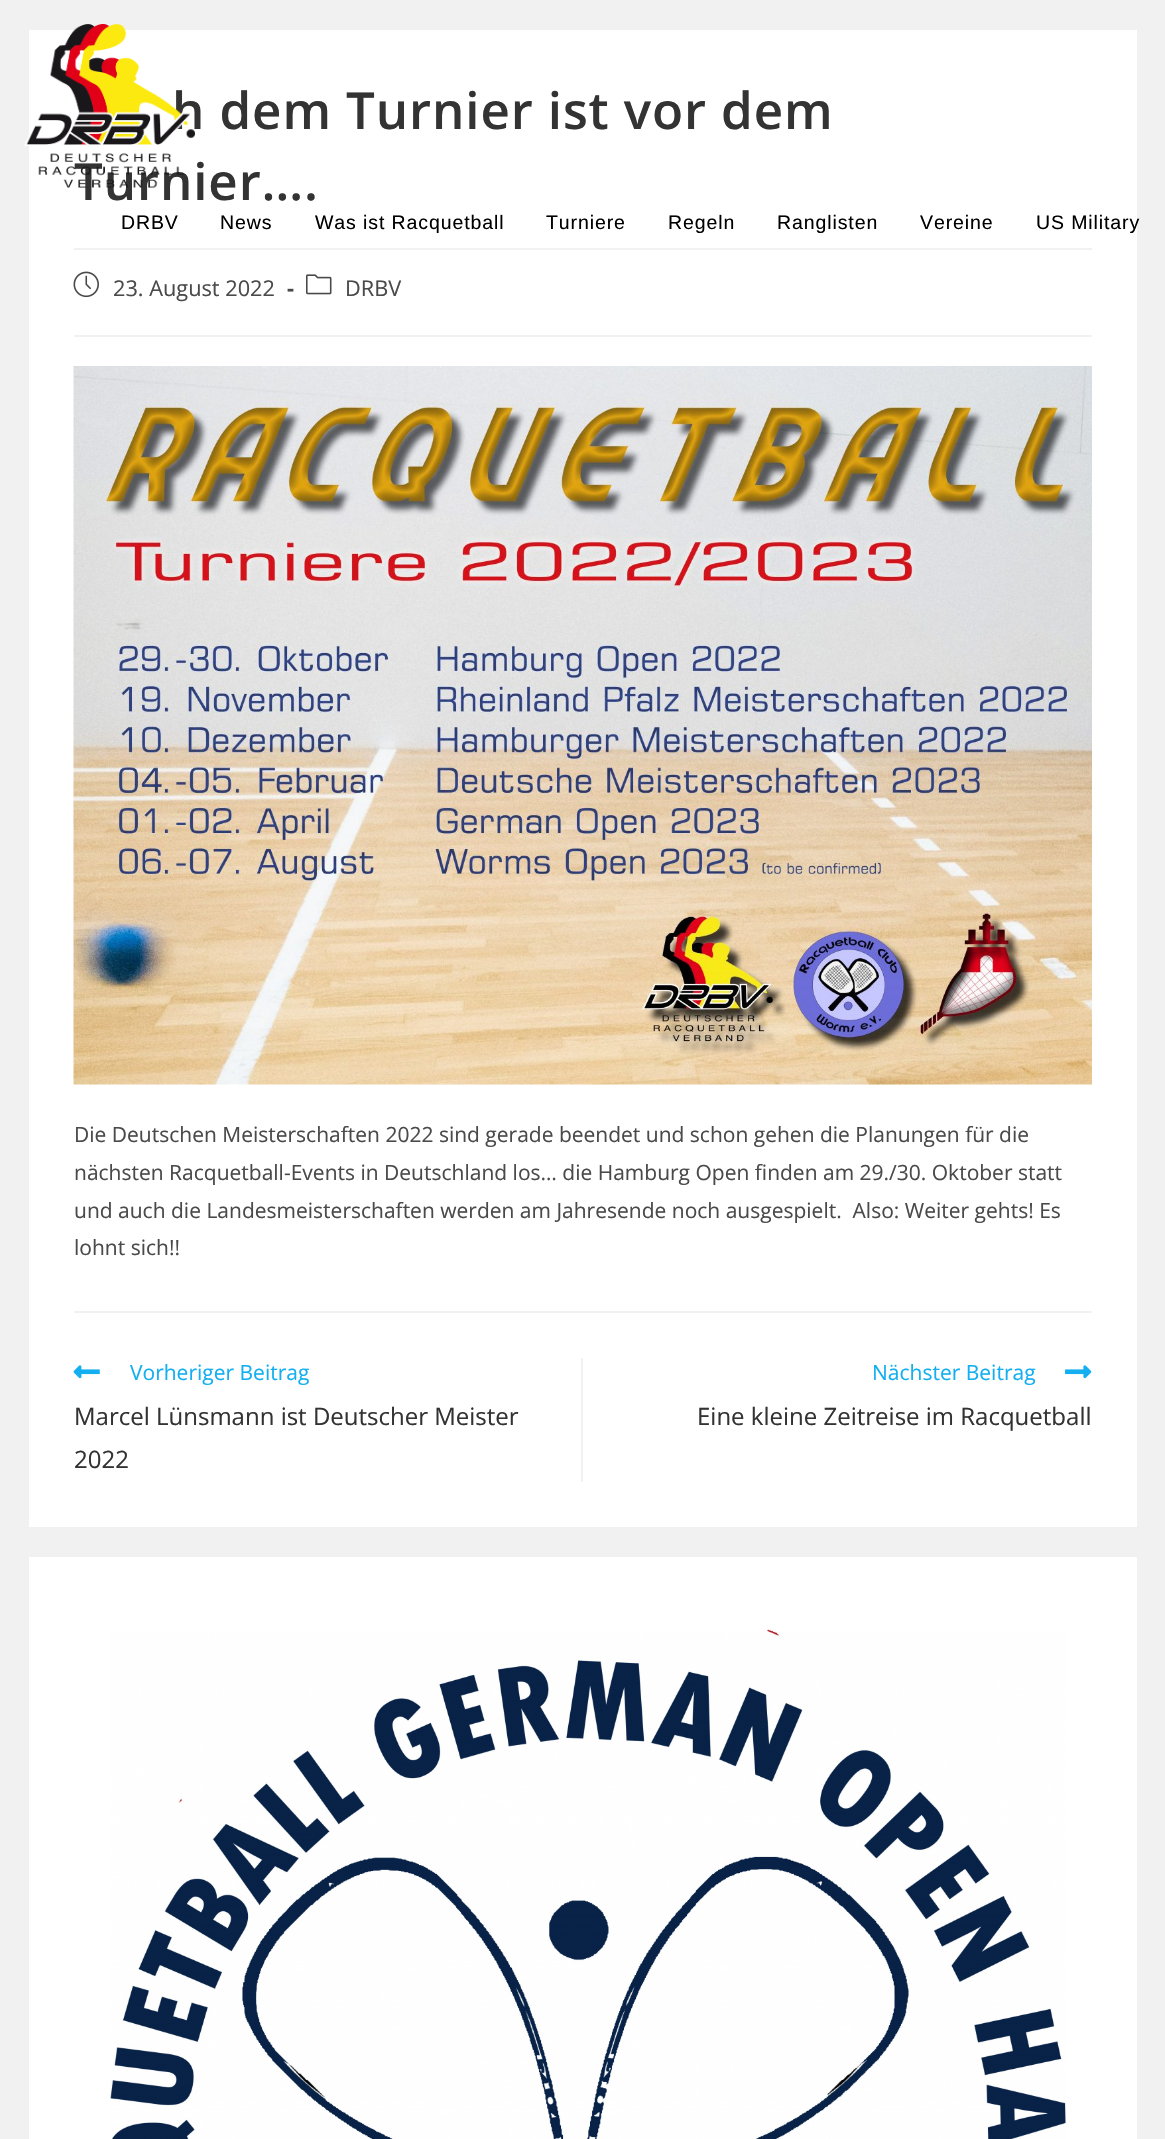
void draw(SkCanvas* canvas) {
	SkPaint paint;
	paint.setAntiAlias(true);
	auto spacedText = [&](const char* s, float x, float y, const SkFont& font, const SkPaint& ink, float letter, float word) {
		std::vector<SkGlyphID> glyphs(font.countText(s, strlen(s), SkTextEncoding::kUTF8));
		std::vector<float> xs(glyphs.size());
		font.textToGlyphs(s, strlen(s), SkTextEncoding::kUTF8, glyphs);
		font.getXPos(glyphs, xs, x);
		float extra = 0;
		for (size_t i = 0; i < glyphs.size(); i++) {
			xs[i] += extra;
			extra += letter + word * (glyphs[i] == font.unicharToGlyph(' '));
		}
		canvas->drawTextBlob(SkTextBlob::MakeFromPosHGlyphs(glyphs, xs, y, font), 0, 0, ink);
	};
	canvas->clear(0xfff1f1f1);
	paint.setColor(0xffffffff);
	canvas->drawRect(SkRect::MakeXYWH(29, 30, 1108, 1497), paint);
	paint.setColor(0xfff1f1f1);
	canvas->drawRect(SkRect::MakeXYWH(74, 248, 1018, 2), paint);
	SkFont f1(fontMgr->matchFamilyStyle("Open Sans", SkFontStyle(600, SkFontStyle::kNormal_Width, SkFontStyle::kUpright_Slant)), 51);
	f1.setSubpixel(true);
	paint.setColor(0xff333333);
	spacedText("h dem Turnier ist vor dem", 172, 129, f1, paint, 0.9, 0);
	spacedText("Turnier….", 74, 200, f1, paint, 0.9, 0);
	paint.setColor(0xfff1f1f1);
	canvas->drawRect(SkRect::MakeXYWH(74, 335, 1018, 2), paint);
	canvas->drawImageRect(SkImages::DeferredFromEncodedData(SkData::MakeFromFileName("img1.png")), SkRect::MakeXYWH(73, 271, 26, 27), SkSamplingOptions());
	SkFont f2(fontMgr->matchFamilyStyle("Open Sans", SkFontStyle::Normal()), 21.75);
	f2.setSubpixel(true);
	paint.setColor(0xff4a4a4a);
	canvas->drawString("23. August 2022", 113, 296, f2, paint);
	SkFont f3(fontMgr->matchFamilyStyle("Open Sans", SkFontStyle::Bold()), 21.75);
	f3.setSubpixel(true);
	canvas->drawString("-", 287, 296, f3, paint);
	canvas->drawImageRect(SkImages::DeferredFromEncodedData(SkData::MakeFromFileName("img2.png")), SkRect::MakeXYWH(306, 274, 26, 21), SkSamplingOptions());
	canvas->drawString("DRBV", 345, 296, f2, paint);
	canvas->drawImageRect(SkImages::DeferredFromEncodedData(SkData::MakeFromFileName("img3.png")), SkRect::MakeXYWH(73, 366, 1019, 719), SkSamplingOptions());
	SkFont f4(fontMgr->matchFamilyStyle("Open Sans", SkFontStyle::Normal()), 21);
	f4.setSubpixel(true);
	canvas->drawString("Die Deutschen Meisterschaften 2022 sind gerade beendet und schon gehen die Planungen für die", 74, 1142, f4, paint);
	canvas->drawString("nächsten Racquetball-Events in Deutschland los… die Hamburg Open finden am 29./30. Oktober statt", 74, 1180, f4, paint);
	canvas->drawString("und auch die Landesmeisterschaften werden am Jahresende noch ausgespielt.  Also: Weiter gehts! Es", 74, 1218, f4, paint);
	canvas->drawString("lohnt sich!!", 74, 1255, f4, paint);
	paint.setColor(0xfff1f1f1);
	canvas->drawRect(SkRect::MakeXYWH(74, 1311, 1018, 2), paint);
	canvas->drawRect(SkRect::MakeXYWH(581, 1358, 2, 124), paint);
	canvas->drawImageRect(SkImages::DeferredFromEncodedData(SkData::MakeFromFileName("img4.png")), SkRect::MakeXYWH(73, 1365, 27, 14), SkSamplingOptions());
	paint.setColor(0xff13aff0);
	canvas->drawString("Vorheriger Beitrag", 130, 1380, f4, paint);
	SkFont f5(fontMgr->matchFamilyStyle("Open Sans", SkFontStyle::Normal()), 24);
	f5.setSubpixel(true);
	paint.setColor(0xff333333);
	canvas->drawString("Marcel Lünsmann ist Deutscher Meister", 74, 1425, f5, paint);
	canvas->drawString("2022", 74, 1468, f5, paint);
	paint.setColor(0xff13aff0);
	canvas->drawString("Nächster Beitrag", 872, 1380, f4, paint);
	canvas->drawImageRect(SkImages::DeferredFromEncodedData(SkData::MakeFromFileName("img5.png")), SkRect::MakeXYWH(1065, 1365, 27, 14), SkSamplingOptions());
	paint.setColor(0xff333333);
	canvas->drawString("Eine kleine Zeitreise im Racquetball", 697, 1425, f5, paint);
	paint.setColor(0xffffffff);
	canvas->drawRect(SkRect::MakeXYWH(29, 1557, 1108, 582), paint);
	canvas->drawImageRect(SkImages::DeferredFromEncodedData(SkData::MakeFromFileName("img6.png")), SkRect::MakeXYWH(110, 1629, 956, 510), SkSamplingOptions());
	canvas->drawImageRect(SkImages::DeferredFromEncodedData(SkData::MakeFromFileName("img7.png")), SkRect::MakeXYWH(24, 24, 171, 164), SkSamplingOptions());
	SkFont f6(fontMgr->matchFamilyStyle("Liberation Sans", SkFontStyle::Normal()), 19.5);
	f6.setSubpixel(true);
	paint.setColor(0xff000000);
	spacedText("DRBV", 121, 229, f6, paint, 0.9, 0);
	spacedText("News", 220, 229, f6, paint, 0.9, 0);
	spacedText("Was ist Racquetball", 315, 229, f6, paint, 0.9, 0);
	spacedText("Turniere", 546, 229, f6, paint, 0.9, 0);
	spacedText("Regeln", 668, 229, f6, paint, 0.9, 0);
	spacedText("Ranglisten", 777, 229, f6, paint, 0.9, 0);
	spacedText("Vereine", 920, 229, f6, paint, 0.9, 0);
	spacedText("US Military", 1036, 229, f6, paint, 0.9, 0);
}
